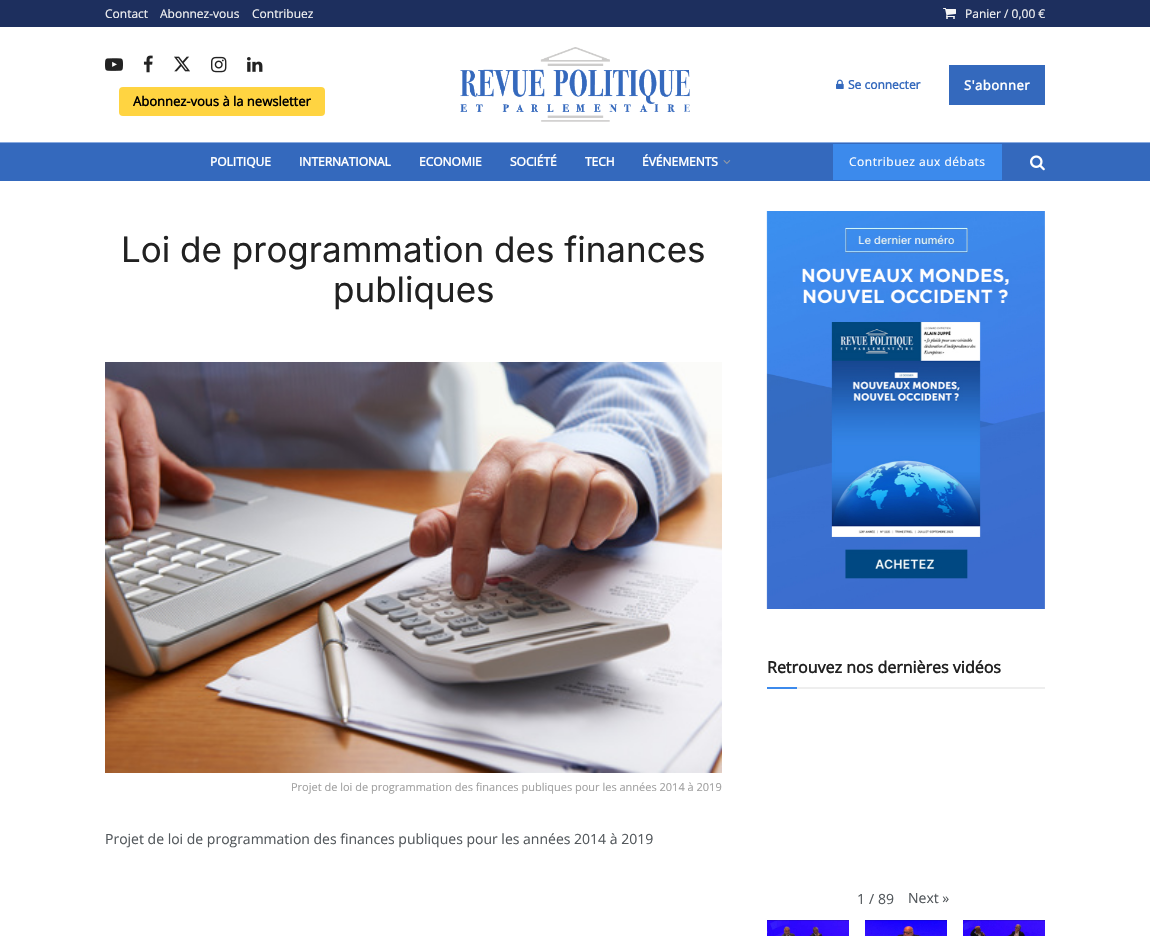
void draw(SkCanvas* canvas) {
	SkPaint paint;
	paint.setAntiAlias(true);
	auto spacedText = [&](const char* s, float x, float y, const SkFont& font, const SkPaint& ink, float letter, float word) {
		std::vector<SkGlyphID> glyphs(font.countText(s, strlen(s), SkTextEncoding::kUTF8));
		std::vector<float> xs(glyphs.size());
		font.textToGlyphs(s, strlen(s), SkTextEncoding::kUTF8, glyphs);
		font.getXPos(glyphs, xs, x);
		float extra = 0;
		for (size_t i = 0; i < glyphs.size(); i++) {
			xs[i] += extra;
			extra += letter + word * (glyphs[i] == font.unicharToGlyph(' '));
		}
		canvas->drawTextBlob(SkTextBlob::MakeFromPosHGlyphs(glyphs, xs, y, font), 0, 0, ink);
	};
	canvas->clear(0xffffffff);
	paint.setColor(0xff1d2f5e);
	canvas->drawRect(SkRect::MakeXYWH(0, 0, 1150, 27), paint);
	SkFont f1(fontMgr->matchFamilyStyle("Open Sans", SkFontStyle::Normal()), 12);
	f1.setSubpixel(true);
	paint.setColor(0xfff5f5f5);
	canvas->drawString("Contact", 105, 18, f1, paint);
	canvas->drawString("Abonnez-vous", 160, 18, f1, paint);
	canvas->drawString("Contribuez", 252, 18, f1, paint);
	canvas->drawImageRect(SkImages::DeferredFromEncodedData(SkData::MakeFromFileName("img1.png")), SkRect::MakeXYWH(943, 8, 13, 11), SkSamplingOptions());
	canvas->drawString("Panier / 0,00 €", 965, 18, f1, paint);
	canvas->drawImageRect(SkImages::DeferredFromEncodedData(SkData::MakeFromFileName("img2.png")), SkRect::MakeXYWH(460, 47, 230, 75), SkSamplingOptions());
	canvas->drawImageRect(SkImages::DeferredFromEncodedData(SkData::MakeFromFileName("img3.png")), SkRect::MakeXYWH(836, 79, 8, 10), SkSamplingOptions());
	SkFont f2(fontMgr->matchFamilyStyle("Open Sans", SkFontStyle::Bold()), 12);
	f2.setSubpixel(true);
	paint.setColor(0xff3469bd);
	canvas->drawString("Se connecter", 848, 89, f2, paint);
	canvas->drawRect(SkRect::MakeXYWH(949, 65, 96, 40), paint);
	SkFont f3(fontMgr->matchFamilyStyle("Open Sans", SkFontStyle::Bold()), 13);
	f3.setSubpixel(true);
	paint.setColor(0xffffffff);
	spacedText("S'abonner", 964, 90, f3, paint, 0.5, 0);
	canvas->drawImageRect(SkImages::DeferredFromEncodedData(SkData::MakeFromFileName("img4.png")), SkRect::MakeXYWH(105, 58, 18, 13), SkSamplingOptions());
	canvas->drawImageRect(SkImages::DeferredFromEncodedData(SkData::MakeFromFileName("img5.png")), SkRect::MakeXYWH(143, 55, 10, 18), SkSamplingOptions());
	canvas->drawImageRect(SkImages::DeferredFromEncodedData(SkData::MakeFromFileName("img6.png")), SkRect::MakeXYWH(174, 56, 16, 16), SkSamplingOptions());
	canvas->drawImageRect(SkImages::DeferredFromEncodedData(SkData::MakeFromFileName("img7.png")), SkRect::MakeXYWH(211, 56, 16, 17), SkSamplingOptions());
	canvas->drawImageRect(SkImages::DeferredFromEncodedData(SkData::MakeFromFileName("img8.png")), SkRect::MakeXYWH(247, 57, 16, 15), SkSamplingOptions());
	paint.setColor(0xffffd441);
	canvas->drawRoundRect(SkRect::MakeXYWH(119, 87, 206, 29), 4, 4, paint);
	paint.setColor(0xff000000);
	canvas->drawString("Abonnez-vous à la newsletter", 133, 106, f3, paint);
	paint.setColor(0xff3469bd);
	canvas->drawRect(SkRect::MakeXYWH(0, 143, 1150, 38), paint);
	paint.setColor(0xff8aabe0);
	canvas->drawRect(SkRect::MakeXYWH(0, 142, 1150, 1), paint);
	paint.setColor(0xffffffff);
	canvas->drawString("POLITIQUE", 210, 166, f2, paint);
	canvas->drawString("INTERNATIONAL", 299, 166, f2, paint);
	canvas->drawString("ECONOMIE", 419, 166, f2, paint);
	canvas->drawString("SOCIÉTÉ", 510, 166, f2, paint);
	canvas->drawString("TECH", 585, 166, f2, paint);
	canvas->drawString("ÉVÉNEMENTS", 642, 166, f2, paint);
	canvas->drawImageRect(SkImages::DeferredFromEncodedData(SkData::MakeFromFileName("img9.png")), SkRect::MakeXYWH(723, 160, 8, 4), SkSamplingOptions());
	paint.setColor(0xff3c8aec);
	canvas->drawRect(SkRect::MakeXYWH(833, 144, 169, 36), paint);
	paint.setColor(0xffffffff);
	spacedText("Contribuez aux débats", 849, 166, f1, paint, 0.5, 0);
	canvas->drawImageRect(SkImages::DeferredFromEncodedData(SkData::MakeFromFileName("img10.png")), SkRect::MakeXYWH(1030, 155, 15, 16), SkSamplingOptions());
	SkFont f4(fontMgr->matchFamilyStyle("Inter", SkFontStyle::Normal()), 35);
	f4.setSubpixel(true);
	paint.setColor(0xff212121);
	canvas->drawString("Loi de programmation des finances", 121, 262, f4, paint);
	canvas->drawString("publiques", 333, 302, f4, paint);
	canvas->drawImageRect(SkImages::DeferredFromEncodedData(SkData::MakeFromFileName("img11.png")), SkRect::MakeXYWH(105, 362, 617, 411), SkSamplingOptions());
	SkFont f5(fontMgr->matchFamilyStyle("Open Sans", SkFontStyle::Normal()), 11);
	f5.setSubpixel(true);
	paint.setColor(0xffa0a0a0);
	canvas->drawString("Projet de loi de programmation des finances publiques pour les années 2014 à 2019", 291, 791, f5, paint);
	SkFont f6(fontMgr->matchFamilyStyle("Open Sans", SkFontStyle::Normal()), 14);
	f6.setSubpixel(true);
	paint.setColor(0xff53585c);
	canvas->drawString("Projet de loi de programmation des finances publiques pour les années 2014 à 2019", 105, 844, f6, paint);
	canvas->drawImageRect(SkImages::DeferredFromEncodedData(SkData::MakeFromFileName("img12.png")), SkRect::MakeXYWH(766, 211, 279, 398), SkSamplingOptions());
	paint.setColor(0xffeeeeee);
	canvas->drawRect(SkRect::MakeXYWH(797, 687, 248, 2), paint);
	SkFont f7(fontMgr->matchFamilyStyle("Open Sans", SkFontStyle::Bold()), 16);
	f7.setSubpixel(true);
	paint.setColor(0xff212121);
	canvas->drawString("Retrouvez nos dernières vidéos", 767, 673, f7, paint);
	paint.setColor(0xff3c8aec);
	canvas->drawRect(SkRect::MakeXYWH(767, 687, 30, 2), paint);
	paint.setColor(0xff53585c);
	canvas->drawString("1", 857, 904, f6, paint);
	canvas->drawString("/", 869, 904, f6, paint);
	canvas->drawString("89", 878, 904, f6, paint);
	canvas->drawString("Next »", 908, 903, f6, paint);
	canvas->drawImageRect(SkImages::DeferredFromEncodedData(SkData::MakeFromFileName("img13.png")), SkRect::MakeXYWH(767, 920, 82, 16), SkSamplingOptions());
	canvas->drawImageRect(SkImages::DeferredFromEncodedData(SkData::MakeFromFileName("img14.png")), SkRect::MakeXYWH(865, 920, 82, 16), SkSamplingOptions());
	canvas->drawImageRect(SkImages::DeferredFromEncodedData(SkData::MakeFromFileName("img15.png")), SkRect::MakeXYWH(963, 920, 82, 16), SkSamplingOptions());
}
